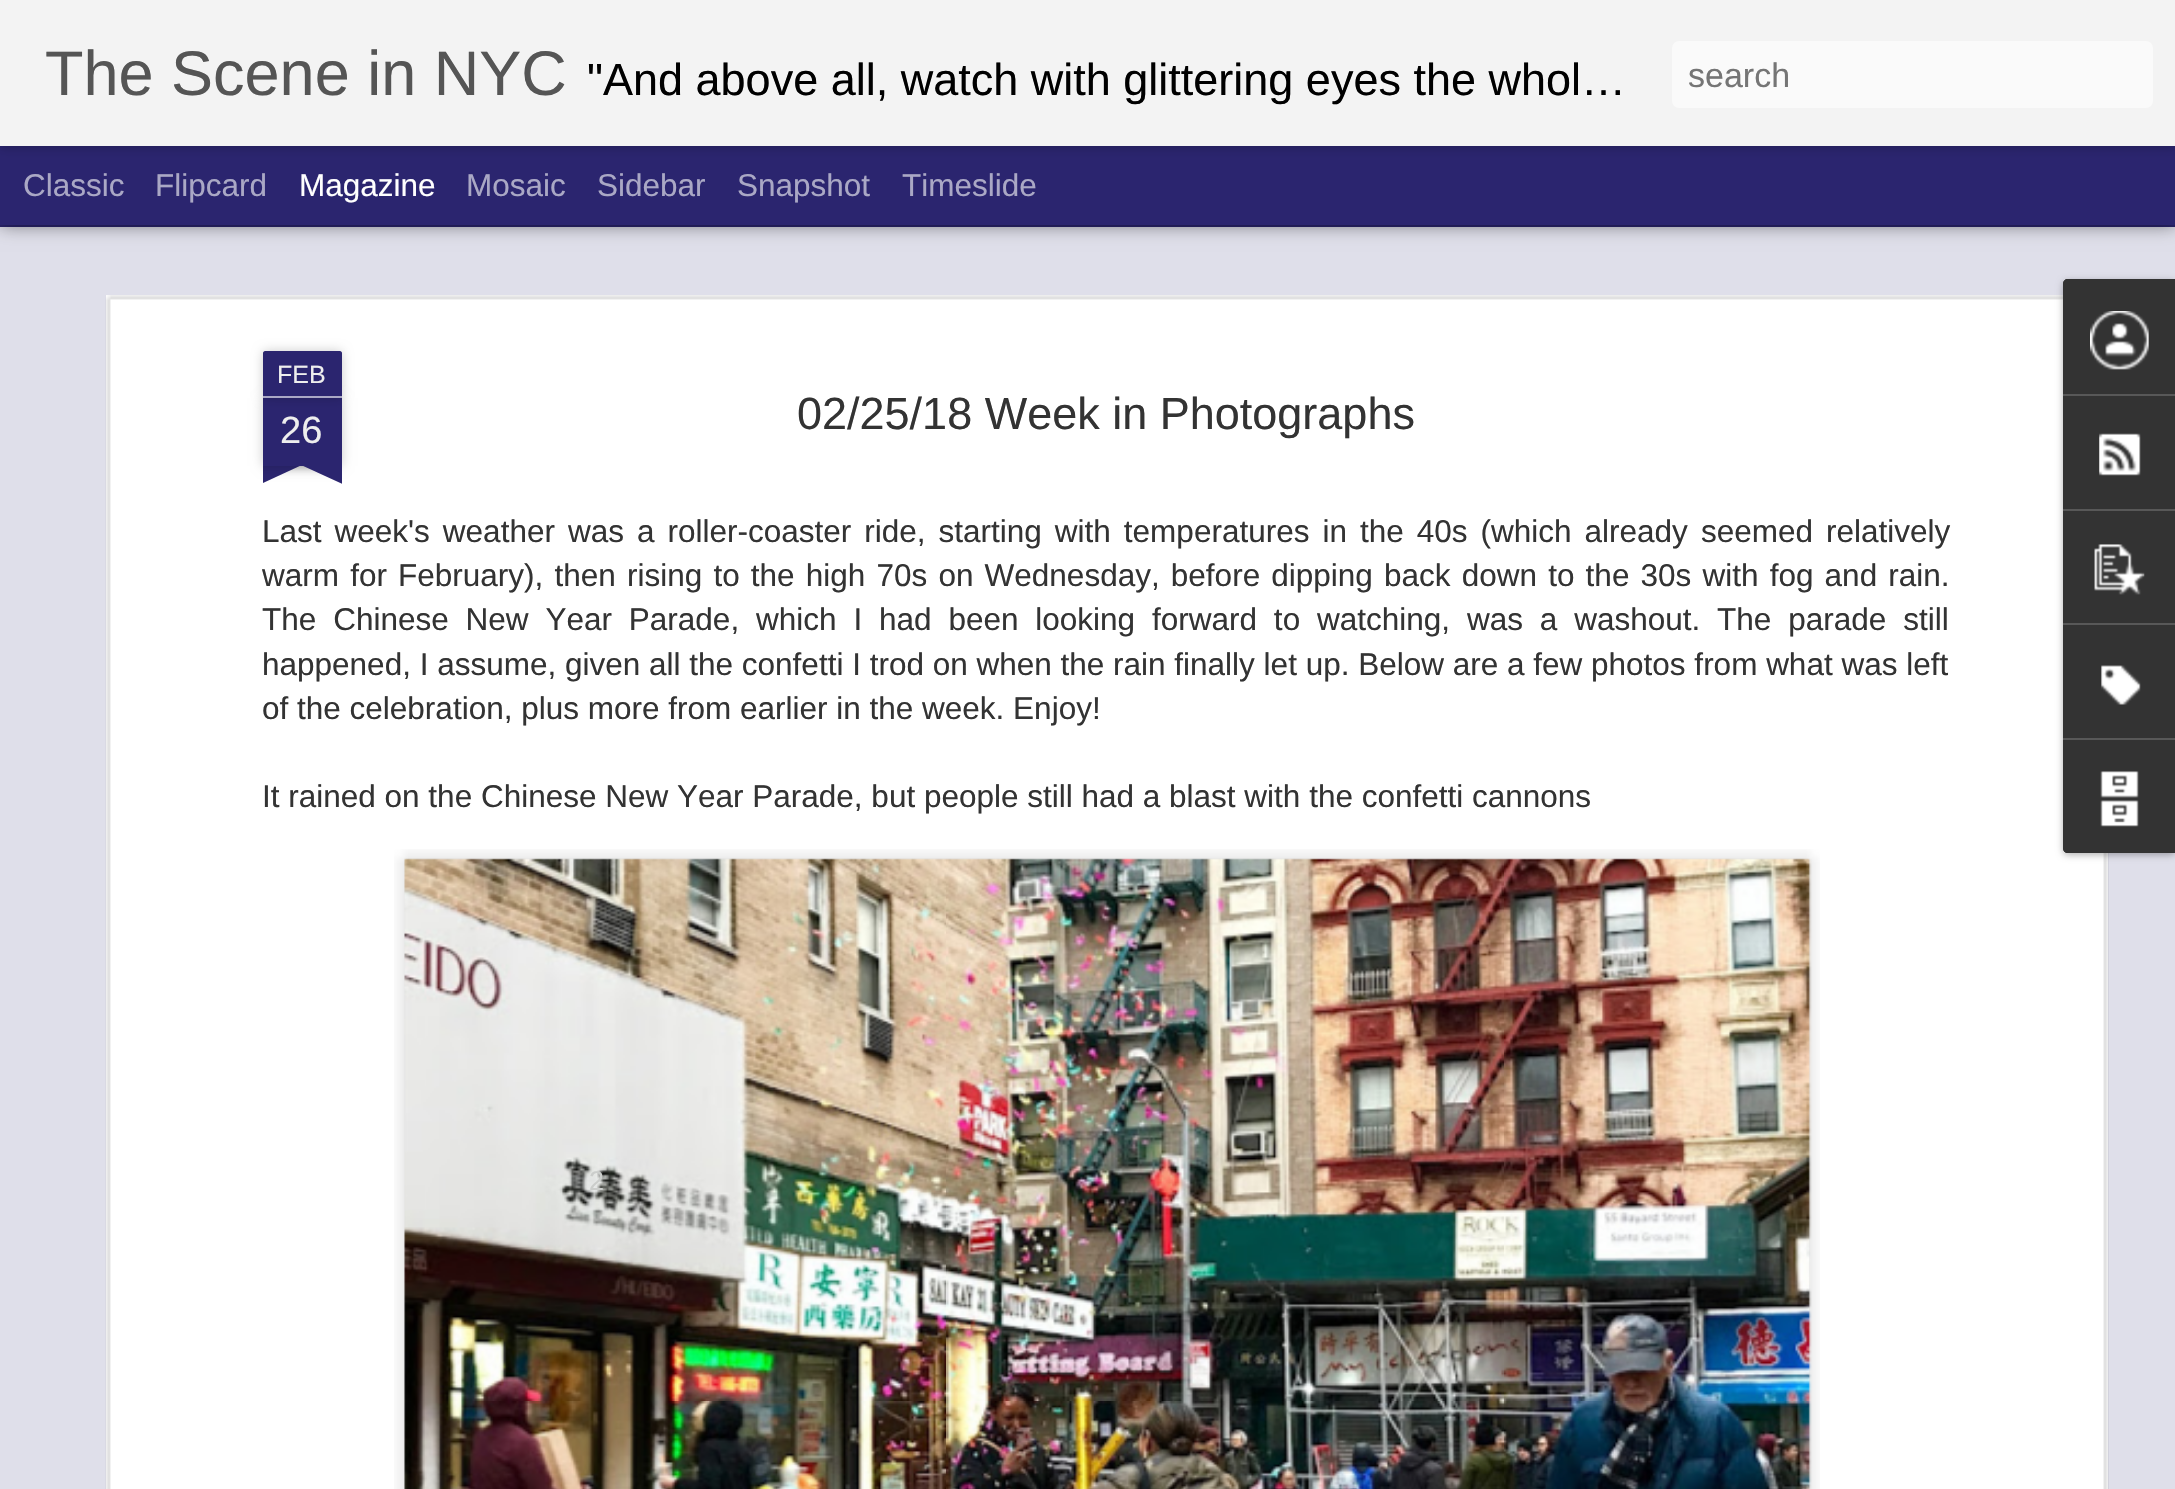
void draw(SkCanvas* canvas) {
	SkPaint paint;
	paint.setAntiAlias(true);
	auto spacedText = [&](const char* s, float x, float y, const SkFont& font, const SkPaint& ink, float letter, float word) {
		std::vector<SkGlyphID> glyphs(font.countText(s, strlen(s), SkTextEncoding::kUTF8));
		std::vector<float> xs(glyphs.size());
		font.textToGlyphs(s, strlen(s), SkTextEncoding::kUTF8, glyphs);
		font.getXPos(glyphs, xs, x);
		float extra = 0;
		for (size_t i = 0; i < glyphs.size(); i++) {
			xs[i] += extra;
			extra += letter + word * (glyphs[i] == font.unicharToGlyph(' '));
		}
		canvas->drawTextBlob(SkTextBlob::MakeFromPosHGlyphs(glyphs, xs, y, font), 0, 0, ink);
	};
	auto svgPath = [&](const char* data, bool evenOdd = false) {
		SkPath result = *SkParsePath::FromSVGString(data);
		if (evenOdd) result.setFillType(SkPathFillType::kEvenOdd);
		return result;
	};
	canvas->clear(0xff2b256f);
	paint.setColor(0xffdfdfea);
	canvas->drawRect(SkRect::MakeXYWH(0, 227, 2175, 1262), paint);
	paint.setColor(0x80000000);
	paint.setMaskFilter(SkMaskFilter::MakeBlur(kNormal_SkBlurStyle, 9));
	canvas->drawRect(SkRect::MakeXYWH(0, 146, 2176, 79), paint);
	paint.setMaskFilter(nullptr);
	paint.setColor(0xff2b256f);
	canvas->drawRect(SkRect::MakeXYWH(0, 146, 2175, 79), paint);
	paint.setColor(0x4d000000);
	paint.setMaskFilter(SkMaskFilter::MakeBlur(kNormal_SkBlurStyle, 5.5));
	canvas->drawRect(SkRect::MakeXYWH(0, 0, 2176, 146), paint);
	paint.setMaskFilter(nullptr);
	paint.setColor(0xfff3f3f3);
	canvas->drawRect(SkRect::MakeXYWH(0, 0, 2175, 146), paint);
	SkFont f1(fontMgr->matchFamilyStyle("Liberation Sans", SkFontStyle::Normal()), 63);
	f1.setSubpixel(true);
	paint.setColor(0xff555555);
	canvas->drawString("The Scene in NYC", 45, 95, f1, paint);
	SkFont f2(fontMgr->matchFamilyStyle("Liberation Sans", SkFontStyle::Normal()), 45);
	f2.setSubpixel(true);
	paint.setColor(0xff000000);
	canvas->drawString("\"And above all, watch with glittering eyes the whol…", 587, 95, f2, paint);
	paint.setColor(0xfffafafa);
	canvas->drawRoundRect(SkRect::MakeXYWH(1672, 41, 481, 67), 7, 7, paint);
	SkFont f3(fontMgr->matchFamilyStyle("Liberation Sans", SkFontStyle::Normal()), 34);
	f3.setSubpixel(true);
	paint.setColor(0xff757575);
	canvas->drawString("search", 1688, 87, f3, paint);
	SkFont f4(fontMgr->matchFamilyStyle("Liberation Sans", SkFontStyle::Normal()), 31.5);
	f4.setSubpixel(true);
	paint.setColor(0xffaaa8c5);
	canvas->drawString("Classic", 23, 196, f4, paint);
	canvas->drawString("Flipcard", 155, 196, f4, paint);
	paint.setColor(0xffffffff);
	canvas->drawString("Magazine", 299, 196, f4, paint);
	paint.setColor(0xffaaa8c5);
	canvas->drawString("Mosaic", 466, 196, f4, paint);
	canvas->drawString("Sidebar", 597, 196, f4, paint);
	canvas->drawString("Snapshot", 737, 196, f4, paint);
	canvas->drawString("Timeslide", 902, 196, f4, paint);
	paint.setColor(0xffffffff);
	canvas->drawRect(SkRect::MakeXYWH(106, 295, 2002, 1194), paint);
	canvas->drawImageRect(SkImages::DeferredFromEncodedData(SkData::MakeFromFileName("img1.png")), SkRect::MakeXYWH(105, 295, 2004, 1194), SkSamplingOptions());
	paint.setColor(0x33000000);
	paint.setMaskFilter(SkMaskFilter::MakeBlur(kNormal_SkBlurStyle, 5.5));
	canvas->drawRect(SkRect::MakeXYWH(263, 398, 79, 68), paint);
	paint.setMaskFilter(nullptr);
	paint.setColor(0xff2b256f);
	canvas->drawRect(SkRect::MakeXYWH(263, 398, 79, 68), paint);
	paint.setColor(0x33000000);
	paint.setMaskFilter(SkMaskFilter::MakeBlur(kNormal_SkBlurStyle, 5.5));
	canvas->drawRoundRect(SkRect::MakeXYWH(263, 351, 79, 47), 2, 2, paint);
	paint.setMaskFilter(nullptr);
	paint.setColor(0xff2b256f);
	canvas->drawPath(svgPath("M265 351H340C341 351 342 352 342 353V398H263V353C263 352 264 351 265 351Z"), paint);
	paint.setColor(0xffaaa8c5);
	canvas->drawRect(SkRect::MakeXYWH(263, 396, 79, 2), paint);
	SkFont f5(fontMgr->matchFamilyStyle("Liberation Sans", SkFontStyle::Normal()), 25);
	f5.setSubpixel(true);
	paint.setColor(0xffeeeeee);
	canvas->drawString("FEB", 277, 383, f5, paint);
	SkFont f6(fontMgr->matchFamilyStyle("Liberation Sans", SkFontStyle::Normal()), 38);
	f6.setSubpixel(true);
	canvas->drawString("26", 280, 443, f6, paint);
	canvas->save();
	canvas->clipRect(SkRect::MakeXYWH(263, 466, 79, 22));
	paint.setColor(0x33000000);
	paint.setMaskFilter(SkMaskFilter::MakeBlur(kNormal_SkBlurStyle, 5.5));
	canvas->drawRect(SkRect::MakeXYWH(243, 443, 113, 23), paint);
	paint.setMaskFilter(nullptr);
	canvas->restore();
	canvas->save();
	canvas->clipRect(SkRect::MakeXYWH(263, 466, 79, 22));
	paint.setColor(0xff2b256f);
	canvas->drawPath(svgPath("M242 468L344 421L354 441L252 488Z"), paint);
	canvas->restore();
	canvas->save();
	canvas->clipRect(SkRect::MakeXYWH(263, 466, 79, 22));
	paint.setColor(0x33000000);
	paint.setMaskFilter(SkMaskFilter::MakeBlur(kNormal_SkBlurStyle, 5.5));
	canvas->drawRect(SkRect::MakeXYWH(250, 443, 112, 23), paint);
	paint.setMaskFilter(nullptr);
	canvas->restore();
	canvas->save();
	canvas->clipRect(SkRect::MakeXYWH(263, 466, 79, 22));
	paint.setColor(0xff2b256f);
	canvas->drawPath(svgPath("M259 421L361 468L351 488L249 441Z"), paint);
	canvas->restore();
	paint.setColor(0xff333333);
	canvas->drawString("02/25/18 Week in Photographs", 797, 429, f2, paint);
	spacedText("Last week's weather was a roller-coaster ride, starting with temperatures in the 40s (which already seemed relatively", 262, 542, f4, paint, 0, 4.25);
	spacedText("warm for February), then rising to the high 70s on Wednesday, before dipping back down to the 30s with fog and rain.", 262, 586, f4, paint, 0, 2.4);
	spacedText("The Chinese New Year Parade, which I had been looking forward to watching, was a washout. The parade still", 262, 630, f4, paint, 0, 8.1);
	canvas->drawString("happened, I assume, given all the confetti I trod on when the rain finally let up. Below are a few photos from what was left", 262, 675, f4, paint);
	canvas->drawString("of the celebration, plus more from earlier in the week. Enjoy!", 262, 719, f4, paint);
	canvas->drawString("It rained on the Chinese New Year Parade, but people still had a blast with the confetti cannons", 262, 807, f4, paint);
	canvas->drawImageRect(SkImages::DeferredFromEncodedData(SkData::MakeFromFileName("img2.png")), SkRect::MakeXYWH(394, 849, 1426, 640), SkSamplingOptions());
	canvas->drawImageRect(SkImages::DeferredFromEncodedData(SkData::MakeFromFileName("img3.png")), SkRect::MakeXYWH(404, 858, 1408, 631), SkSamplingOptions());
	paint.setColor(0x4d000000);
	paint.setMaskFilter(SkMaskFilter::MakeBlur(kNormal_SkBlurStyle, 3.5));
	canvas->drawRoundRect(SkRect::MakeXYWH(2063, 281, 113, 574), 5, 5, paint);
	paint.setMaskFilter(nullptr);
	paint.setColor(0xff333333);
	canvas->drawPath(svgPath("M2068 279H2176V853H2068C2065 853 2063 851 2063 848V284C2063 281 2065 279 2068 279Z"), paint);
	canvas->drawPath(svgPath("M2068 279H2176V394H2063V284C2063 281 2065 279 2068 279Z"), paint);
	canvas->drawImageRect(SkImages::DeferredFromEncodedData(SkData::MakeFromFileName("img4.png")), SkRect::MakeXYWH(2090, 311, 59, 59), SkSamplingOptions());
	paint.setColor(0xff585858);
	canvas->drawRect(SkRect::MakeXYWH(2063, 394, 112, 2), paint);
	canvas->drawImageRect(SkImages::DeferredFromEncodedData(SkData::MakeFromFileName("img5.png")), SkRect::MakeXYWH(2099, 433, 42, 43), SkSamplingOptions());
	canvas->drawRect(SkRect::MakeXYWH(2063, 509, 112, 2), paint);
	canvas->drawImageRect(SkImages::DeferredFromEncodedData(SkData::MakeFromFileName("img6.png")), SkRect::MakeXYWH(2094, 544, 51, 51), SkSamplingOptions());
	canvas->drawRect(SkRect::MakeXYWH(2063, 623, 112, 2), paint);
	canvas->drawImageRect(SkImages::DeferredFromEncodedData(SkData::MakeFromFileName("img7.png")), SkRect::MakeXYWH(2101, 665, 40, 40), SkSamplingOptions());
	paint.setColor(0xff333333);
	canvas->drawPath(svgPath("M2063 738H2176V853H2068C2065 853 2063 851 2063 848Z"), paint);
	paint.setColor(0xff585858);
	canvas->drawRect(SkRect::MakeXYWH(2063, 738, 112, 2), paint);
	canvas->drawImageRect(SkImages::DeferredFromEncodedData(SkData::MakeFromFileName("img8.png")), SkRect::MakeXYWH(2100, 771, 39, 56), SkSamplingOptions());
	SkFont f7(fontMgr->matchFamilyStyle("Liberation Sans", SkFontStyle::Normal()), 27);
	f7.setSubpixel(true);
	paint.setColor(0xffcbcdcb);
	canvas->drawString("2", 589, 1190, f7, paint);
}
